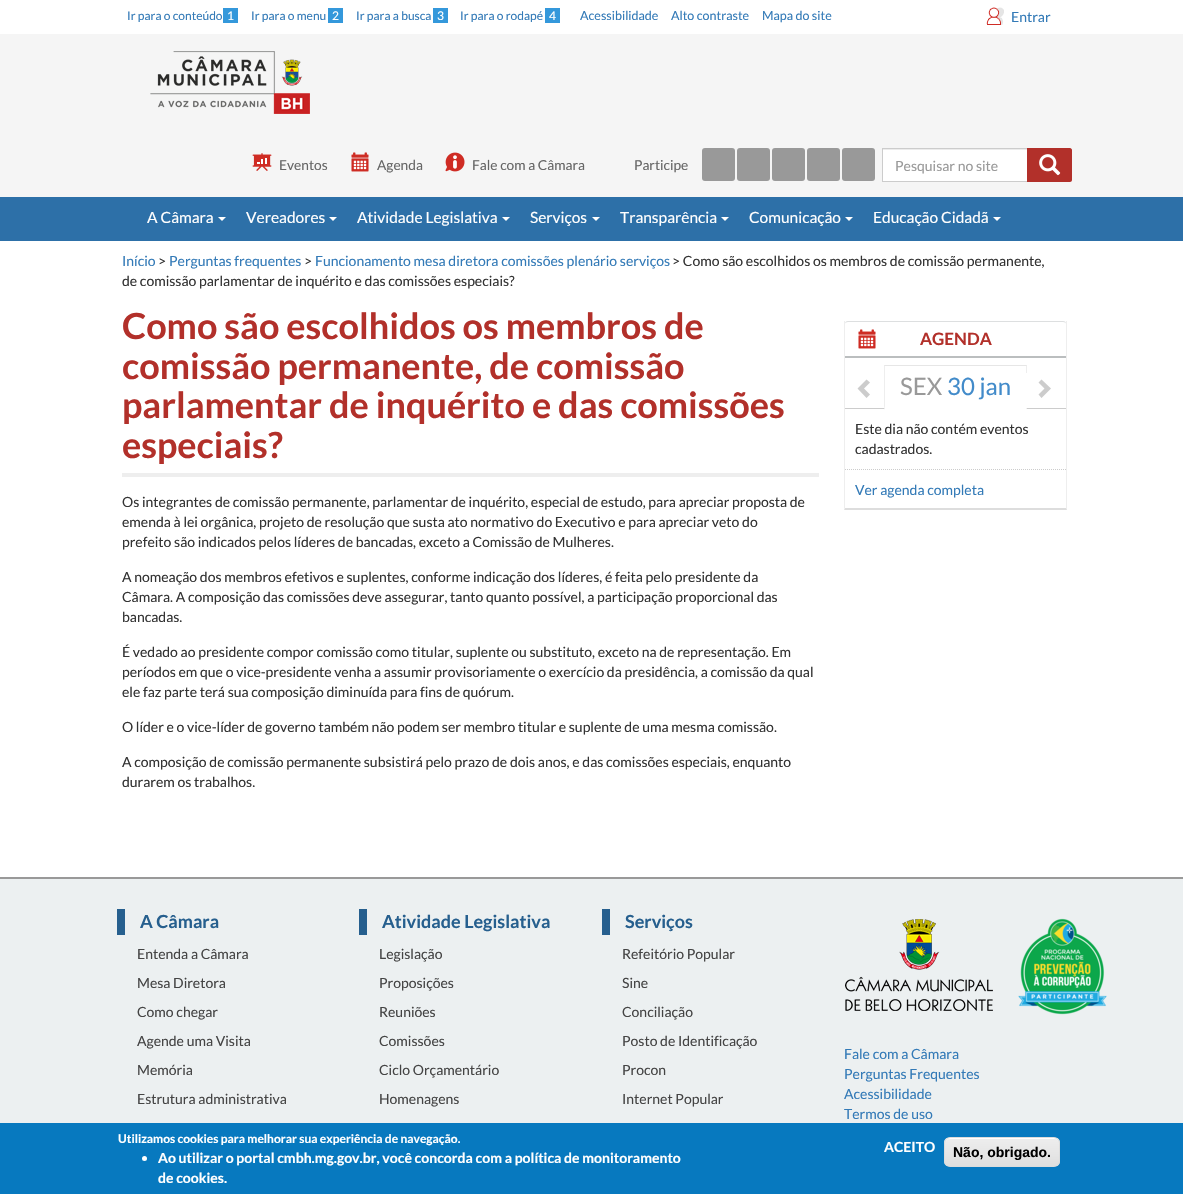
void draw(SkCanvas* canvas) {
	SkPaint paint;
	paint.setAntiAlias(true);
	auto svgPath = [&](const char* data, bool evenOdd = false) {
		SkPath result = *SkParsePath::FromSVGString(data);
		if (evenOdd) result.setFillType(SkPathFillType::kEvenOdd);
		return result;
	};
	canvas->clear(0xffffffff);
	SkFont f1(fontMgr->matchFamilyStyle("Lato", SkFontStyle::Normal()), 12);
	f1.setSubpixel(true);
	paint.setColor(0xff337ab7);
	canvas->drawString("Ir para o conteúdo", 127, 20, f1, paint);
	paint.setColor(0xff3498db);
	canvas->drawRect(SkRect::MakeXYWH(223, 8, 15, 15), paint);
	paint.setColor(0xffffffff);
	canvas->drawString("1", 227, 20, f1, paint);
	paint.setColor(0xff337ab7);
	canvas->drawString("Ir para o menu", 251, 20, f1, paint);
	paint.setColor(0xff3498db);
	canvas->drawRect(SkRect::MakeXYWH(328, 8, 15, 15), paint);
	paint.setColor(0xffffffff);
	canvas->drawString("2", 332, 20, f1, paint);
	paint.setColor(0xff337ab7);
	canvas->drawString("Ir para a busca", 356, 20, f1, paint);
	paint.setColor(0xff3498db);
	canvas->drawRect(SkRect::MakeXYWH(433, 8, 15, 15), paint);
	paint.setColor(0xffffffff);
	canvas->drawString("3", 437, 20, f1, paint);
	paint.setColor(0xff337ab7);
	canvas->drawString("Ir para o rodapé", 460, 20, f1, paint);
	paint.setColor(0xff3498db);
	canvas->drawRect(SkRect::MakeXYWH(545, 8, 15, 15), paint);
	paint.setColor(0xffffffff);
	canvas->drawString("4", 549, 20, f1, paint);
	SkFont f2(fontMgr->matchFamilyStyle("Lato", SkFontStyle::Normal()), 12.5);
	f2.setSubpixel(true);
	paint.setColor(0xff337ab7);
	canvas->drawString("Acessibilidade", 580, 20, f2, paint);
	canvas->drawString("Alto contraste", 671, 20, f2, paint);
	canvas->drawString("Mapa do site", 762, 20, f2, paint);
	canvas->drawImageRect(SkImages::DeferredFromEncodedData(SkData::MakeFromFileName("img1.png")), SkRect::MakeXYWH(986, 7, 18, 18), SkSamplingOptions());
	SkFont f3(fontMgr->matchFamilyStyle("Lato", SkFontStyle::Normal()), 14);
	f3.setSubpixel(true);
	canvas->drawString("Entrar", 1011, 22, f3, paint);
	paint.setColor(0xfff5f5f5);
	canvas->drawRect(SkRect::MakeXYWH(0, 34, 1183, 163), paint);
	canvas->drawImageRect(SkImages::DeferredFromEncodedData(SkData::MakeFromFileName("img2.png")), SkRect::MakeXYWH(150, 51, 160, 63), SkSamplingOptions());
	canvas->drawImageRect(SkImages::DeferredFromEncodedData(SkData::MakeFromFileName("img3.png")), SkRect::MakeXYWH(252, 153, 20, 18), SkSamplingOptions());
	SkFont f4(fontMgr->matchFamilyStyle("Lato", SkFontStyle::Normal()), 13.75);
	f4.setSubpixel(true);
	paint.setColor(0xff666666);
	canvas->drawString("Eventos", 279, 170, f4, paint);
	canvas->drawImageRect(SkImages::DeferredFromEncodedData(SkData::MakeFromFileName("img4.png")), SkRect::MakeXYWH(351, 152, 18, 20), SkSamplingOptions());
	canvas->drawString("Agenda", 377, 170, f4, paint);
	canvas->drawImageRect(SkImages::DeferredFromEncodedData(SkData::MakeFromFileName("img5.png")), SkRect::MakeXYWH(445, 152, 20, 20), SkSamplingOptions());
	canvas->drawString("Fale com a Câmara", 472, 170, f4, paint);
	canvas->drawString("Participe", 634, 170, f4, paint);
	paint.setColor(0xff999999);
	canvas->drawRoundRect(SkRect::MakeXYWH(702, 148, 33, 33), 3, 3, paint);
	canvas->drawRoundRect(SkRect::MakeXYWH(737, 148, 33, 33), 3, 3, paint);
	canvas->drawRoundRect(SkRect::MakeXYWH(772, 148, 33, 33), 3, 3, paint);
	canvas->drawRoundRect(SkRect::MakeXYWH(807, 148, 33, 33), 3, 3, paint);
	canvas->drawRoundRect(SkRect::MakeXYWH(842, 148, 33, 33), 3, 3, paint);
	paint.setColor(0xffffffff);
	canvas->drawRect(SkRect::MakeXYWH(883, 150, 144, 31), paint);
	paint.setColor(0xffececec);
	canvas->drawRect(SkRect::MakeXYWH(883, 149, 144, 1), paint);
	paint.setStroke(true);
	paint.setStrokeWidth(1);
	paint.setColor(0xffcccccc);
	canvas->drawRect(SkRect::MakeXYWH(882.5, 148.5, 145, 33), paint);
	paint.setStroke(false);
	paint.setColor(0xff999999);
	canvas->drawString("Pesquisar no site", 895, 171, f3, paint);
	paint.setColor(0xffb2302a);
	canvas->drawPath(svgPath("M1027 148H1070C1071 148 1072 149 1072 150V180C1072 181 1071 182 1070 182H1027Z"), paint);
	canvas->drawImageRect(SkImages::DeferredFromEncodedData(SkData::MakeFromFileName("img6.png")), SkRect::MakeXYWH(1039, 154, 22, 22), SkSamplingOptions());
	paint.setColor(0xff2d70a8);
	canvas->drawRect(SkRect::MakeXYWH(0, 197, 1183, 44), paint);
	SkFont f5(fontMgr->matchFamilyStyle("Lato", SkFontStyle::Normal()), 15.5);
	f5.setSubpixel(true);
	paint.setColor(0xffffffff);
	canvas->drawString("A Câmara", 147, 223, f5, paint);
	canvas->drawPath(svgPath("M218 217H226L222 221Z"), paint);
	canvas->drawString("Vereadores", 246, 223, f5, paint);
	canvas->drawPath(svgPath("M329 217H337L333 221Z"), paint);
	canvas->drawString("Atividade Legislativa", 357, 223, f5, paint);
	canvas->drawPath(svgPath("M502 217H510L506 221Z"), paint);
	canvas->drawString("Serviços", 530, 223, f5, paint);
	canvas->drawPath(svgPath("M592 217H600L596 221Z"), paint);
	canvas->drawString("Transparência", 620, 223, f5, paint);
	canvas->drawPath(svgPath("M721 217H729L725 221Z"), paint);
	canvas->drawString("Comunicação", 749, 223, f5, paint);
	canvas->drawPath(svgPath("M845 217H853L849 221Z"), paint);
	canvas->drawString("Educação Cidadã", 873, 223, f5, paint);
	canvas->drawPath(svgPath("M993 217H1001L997 221Z"), paint);
	paint.setColor(0xff337ab7);
	canvas->drawString("Início", 122, 266, f3, paint);
	paint.setColor(0xff333333);
	canvas->drawString(">", 158, 266, f3, paint);
	paint.setColor(0xff337ab7);
	canvas->drawString("Perguntas frequentes", 169, 266, f3, paint);
	paint.setColor(0xff333333);
	canvas->drawString(">", 304, 266, f3, paint);
	paint.setColor(0xff337ab7);
	canvas->drawString("Funcionamento mesa diretora comissões plenário serviços", 315, 266, f3, paint);
	paint.setColor(0xff333333);
	canvas->drawString("> Como são escolhidos os membros de comissão permanente,", 672, 266, f3, paint);
	canvas->drawString("de comissão parlamentar de inquérito e das comissões especiais?", 122, 286, f3, paint);
	paint.setColor(0xffeeeeee);
	canvas->drawRect(SkRect::MakeXYWH(122, 473, 697, 4), paint);
	SkFont f6(fontMgr->matchFamilyStyle("Lato", SkFontStyle::Bold()), 36);
	f6.setSubpixel(true);
	paint.setColor(0xffb2302a);
	canvas->drawString("Como são escolhidos os membros de", 122, 339, f6, paint);
	canvas->drawString("comissão permanente, de comissão", 122, 379, f6, paint);
	canvas->drawString("parlamentar de inquérito e das comissões", 122, 418, f6, paint);
	canvas->drawString("especiais?", 122, 458, f6, paint);
	paint.setColor(0xff333333);
	canvas->drawString("Os integrantes de comissão permanente, parlamentar de inquérito, especial de estudo, para apreciar proposta de", 122, 507, f3, paint);
	canvas->drawString("emenda à lei orgânica, projeto de resolução que susta ato normativo do Executivo e para apreciar veto do", 122, 527, f3, paint);
	canvas->drawString("prefeito são indicados pelos líderes de bancadas, exceto a Comissão de Mulheres.", 122, 547, f3, paint);
	canvas->drawString("A nomeação dos membros efetivos e suplentes, conforme indicação dos líderes, é feita pelo presidente da", 122, 582, f3, paint);
	canvas->drawString("Câmara. A composição das comissões deve assegurar, tanto quanto possível, a participação proporcional das", 122, 602, f3, paint);
	canvas->drawString("bancadas.", 122, 622, f3, paint);
	canvas->drawString("É vedado ao presidente compor comissão como titular, suplente ou substituto, exceto na de representação. Em", 122, 657, f3, paint);
	canvas->drawString("períodos em que o vice-presidente venha a assumir provisoriamente o exercício da presidência, a comissão da qual", 122, 677, f3, paint);
	canvas->drawString("ele faz parte terá sua composição diminuída para fins de quórum.", 122, 697, f3, paint);
	canvas->drawString("O líder e o vice-líder de governo também não podem ser membro titular e suplente de uma mesma comissão.", 122, 732, f3, paint);
	canvas->drawString("A composição de comissão permanente subsistirá pelo prazo de dois anos, e das comissões especiais, enquanto", 122, 767, f3, paint);
	canvas->drawString("durarem os trabalhos.", 122, 787, f3, paint);
	paint.setColor(0xffeeeeee);
	canvas->drawPath(svgPath("M1067 321V510L1066 508V321Z"), paint);
	paint.setColor(0xffdddddd);
	canvas->drawPath(svgPath("M1067 510H844L845 508H1066Z"), paint);
	paint.setColor(0xffeeeeee);
	canvas->drawPath(svgPath("M844 510V321H845V508Z"), paint);
	canvas->drawImageRect(SkImages::DeferredFromEncodedData(SkData::MakeFromFileName("img7.png")), SkRect::MakeXYWH(858, 329, 18, 20), SkSamplingOptions());
	paint.setColor(0xffdddfe0);
	canvas->drawPath(svgPath("M848 321C846 321 845 322 845 324C845 323 846 322 848 322H1063C1065 322 1066 323 1066 324C1066 322 1065 321 1063 321Z"), paint);
	paint.setColor(0xffbbbebf);
	canvas->drawRect(SkRect::MakeXYWH(845, 356, 221, 2), paint);
	SkFont f7(fontMgr->matchFamilyStyle("Lato", SkFontStyle::Bold()), 17);
	f7.setSubpixel(true);
	paint.setColor(0xffb2302a);
	canvas->drawString("AGENDA", 920, 345, f7, paint);
	paint.setColor(0xffcccccc);
	canvas->drawPath(svgPath("M870 382.5L864 388.5L870 394.5L866.5 398L857.5 388.5L866.5 379.5Z"), paint);
	paint.setColor(0xffe6e6e6);
	canvas->drawRect(SkRect::MakeXYWH(884, 365, 143, 1), paint);
	paint.setColor(0xffcccccc);
	canvas->drawRect(SkRect::MakeXYWH(845, 408, 221, 1), paint);
	paint.setColor(0xffeeeeee);
	canvas->drawPath(svgPath("M1027 365V410L1026 406V366Z"), paint);
	paint.setColor(0xffffffff);
	canvas->drawPath(svgPath("M1027 410H884L885 406H1026Z"), paint);
	canvas->drawPath(svgPath("M1026 373H1058C1059.5 373 1061 374.5 1061 376V405C1061 406.5 1059.5 408 1058 408H1026Z"), paint);
	paint.setColor(0xffcccccc);
	canvas->drawPath(svgPath("M1051 388.5L1041.5 398L1038.5 394.5L1044.5 388.5L1038.5 382.5L1041.5 379.5Z"), paint);
	paint.setColor(0xffeeeeee);
	canvas->drawPath(svgPath("M884 410V365L885 366V406Z"), paint);
	SkFont f8(fontMgr->matchFamilyStyle("Lato", SkFontStyle::Normal()), 24);
	f8.setSubpixel(true);
	paint.setColor(0xff999999);
	canvas->drawString("SEX", 900, 395, f8, paint);
	paint.setColor(0xff428bca);
	canvas->drawString("30 jan", 947, 395, f8, paint);
	paint.setStroke(true);
	paint.setColor(0xffcccccc);
	paint.setPathEffect(SkDashPathEffect::Make({{1, 1}}, 0));
	canvas->drawPath(svgPath("M845 469.5H1066"), paint);
	paint.setPathEffect(nullptr);
	paint.setStroke(false);
	paint.setColor(0xff333333);
	canvas->drawString("Este dia não contém eventos", 855, 434, f3, paint);
	canvas->drawString("cadastrados.", 855, 454, f3, paint);
	paint.setColor(0xff337ab7);
	canvas->drawString("Ver agenda completa", 855, 495, f3, paint);
	paint.setColor(0xffecf0f1);
	canvas->drawRect(SkRect::MakeXYWH(0, 879, 1183, 244), paint);
	paint.setColor(0xff999999);
	canvas->drawRect(SkRect::MakeXYWH(0, 877, 1183, 2), paint);
	paint.setColor(0xff265f8e);
	canvas->drawRect(SkRect::MakeXYWH(117, 909, 8, 26), paint);
	SkFont f9(fontMgr->matchFamilyStyle("Lato", SkFontStyle::Bold()), 18);
	f9.setSubpixel(true);
	canvas->drawString("A Câmara", 140, 928, f9, paint);
	paint.setColor(0xff444444);
	canvas->drawString("Entenda a Câmara", 137, 959, f3, paint);
	canvas->drawString("Mesa Diretora", 137, 988, f3, paint);
	canvas->drawString("Como chegar", 137, 1017, f3, paint);
	canvas->drawString("Agende uma Visita", 137, 1046, f3, paint);
	canvas->drawString("Memória", 137, 1075, f3, paint);
	canvas->drawString("Estrutura administrativa", 137, 1104, f3, paint);
	paint.setColor(0xff265f8e);
	canvas->drawRect(SkRect::MakeXYWH(359, 909, 8, 26), paint);
	canvas->drawString("Atividade Legislativa", 382, 928, f9, paint);
	paint.setColor(0xff444444);
	canvas->drawString("Legislação", 379, 959, f3, paint);
	canvas->drawString("Proposições", 379, 988, f3, paint);
	canvas->drawString("Reuniões", 379, 1017, f3, paint);
	canvas->drawString("Comissões", 379, 1046, f3, paint);
	canvas->drawString("Ciclo Orçamentário", 379, 1075, f3, paint);
	canvas->drawString("Homenagens", 379, 1104, f3, paint);
	paint.setColor(0xff265f8e);
	canvas->drawRect(SkRect::MakeXYWH(602, 909, 8, 26), paint);
	canvas->drawString("Serviços", 625, 928, f9, paint);
	paint.setColor(0xff444444);
	canvas->drawString("Refeitório Popular", 622, 959, f3, paint);
	canvas->drawString("Sine", 622, 988, f3, paint);
	canvas->drawString("Conciliação", 622, 1017, f3, paint);
	canvas->drawString("Posto de Identificação", 622, 1046, f3, paint);
	canvas->drawString("Procon", 622, 1075, f3, paint);
	canvas->drawString("Internet Popular", 622, 1104, f3, paint);
	canvas->drawImageRect(SkImages::DeferredFromEncodedData(SkData::MakeFromFileName("img8.png")), SkRect::MakeXYWH(845, 919, 148, 92), SkSamplingOptions());
	canvas->drawImageRect(SkImages::DeferredFromEncodedData(SkData::MakeFromFileName("img9.png")), SkRect::MakeXYWH(1018, 918, 89, 97), SkSamplingOptions());
	paint.setColor(0xff337ab7);
	canvas->drawString("Fale com a Câmara", 844, 1059, f3, paint);
	canvas->drawString("Perguntas Frequentes", 844, 1079, f3, paint);
	canvas->drawString("Acessibilidade", 844, 1099, f3, paint);
	canvas->drawString("Termos de uso", 844, 1119, f3, paint);
	paint.setColor(0xff0779bf);
	canvas->drawRect(SkRect::MakeXYWH(0, 1123, 1183, 71), paint);
	SkFont f10(fontMgr->matchFamilyStyle("Lato", SkFontStyle::Bold()), 12);
	f10.setSubpixel(true);
	paint.setColor(0xffffffff);
	canvas->drawString("Utilizamos cookies para melhorar sua experiência de navegação.", 118, 1143, f10, paint);
	canvas->drawCircle(144.5, 1158.5, 2.5, paint);
	SkFont f11(fontMgr->matchFamilyStyle("Lato", SkFontStyle::Bold()), 14);
	f11.setSubpixel(true);
	canvas->drawString("Ao utilizar o portal cmbh.mg.gov.br, você concorda com a política de monitoramento", 158, 1163, f11, paint);
	canvas->drawString("de cookies.", 158, 1183, f11, paint);
	canvas->drawString("ACEITO", 884, 1152, f11, paint);
	canvas->save();
	canvas->clipPath(svgPath("M950 1137H1054C1057.5 1137 1060 1139.5 1060 1143V1161C1060 1164.5 1057.5 1167 1054 1167H950C946.5 1167 944 1164.5 944 1161V1143C944 1139.5 946.5 1137 950 1137Z"), true);
	{
		const SkColor colors[] = {0xffededed, 0xffdfdfdf};
		const float stops[] = {0.05, 1};
		const SkPoint ends[] = {{1002, 1138}, {1002, 1166}};
		paint.setShader(SkGradientShader::MakeLinear(ends, colors, stops, 2, SkTileMode::kClamp));
		paint.setAlpha(255);
	}
	canvas->drawRect(SkRect::MakeXYWH(944, 1138, 116, 28), paint);
	canvas->restore();
	paint.setShader(nullptr);
	paint.setColor(0xffffffff);
	canvas->drawPath(svgPath("M950 1139H1054C1057 1139 1059 1141 1059 1144C1059 1134 1041 1138 1037 1138H967C963 1138 945 1134 945 1144C945 1141 947 1139 950 1139Z"), paint);
	paint.setStroke(true);
	paint.setColor(0xffdcdcdc);
	canvas->drawRoundRect(SkRect::MakeXYWH(944.5, 1137.5, 115, 29), 5.5, 5.5, paint);
	SkFont f12(fontMgr->matchFamilyStyle("Liberation Sans", SkFontStyle::Bold()), 14);
	f12.setSubpixel(true);
	paint.setStroke(false);
	paint.setColor(0xff000000);
	canvas->drawString("Não, obrigado.", 953, 1157, f12, paint);
}
